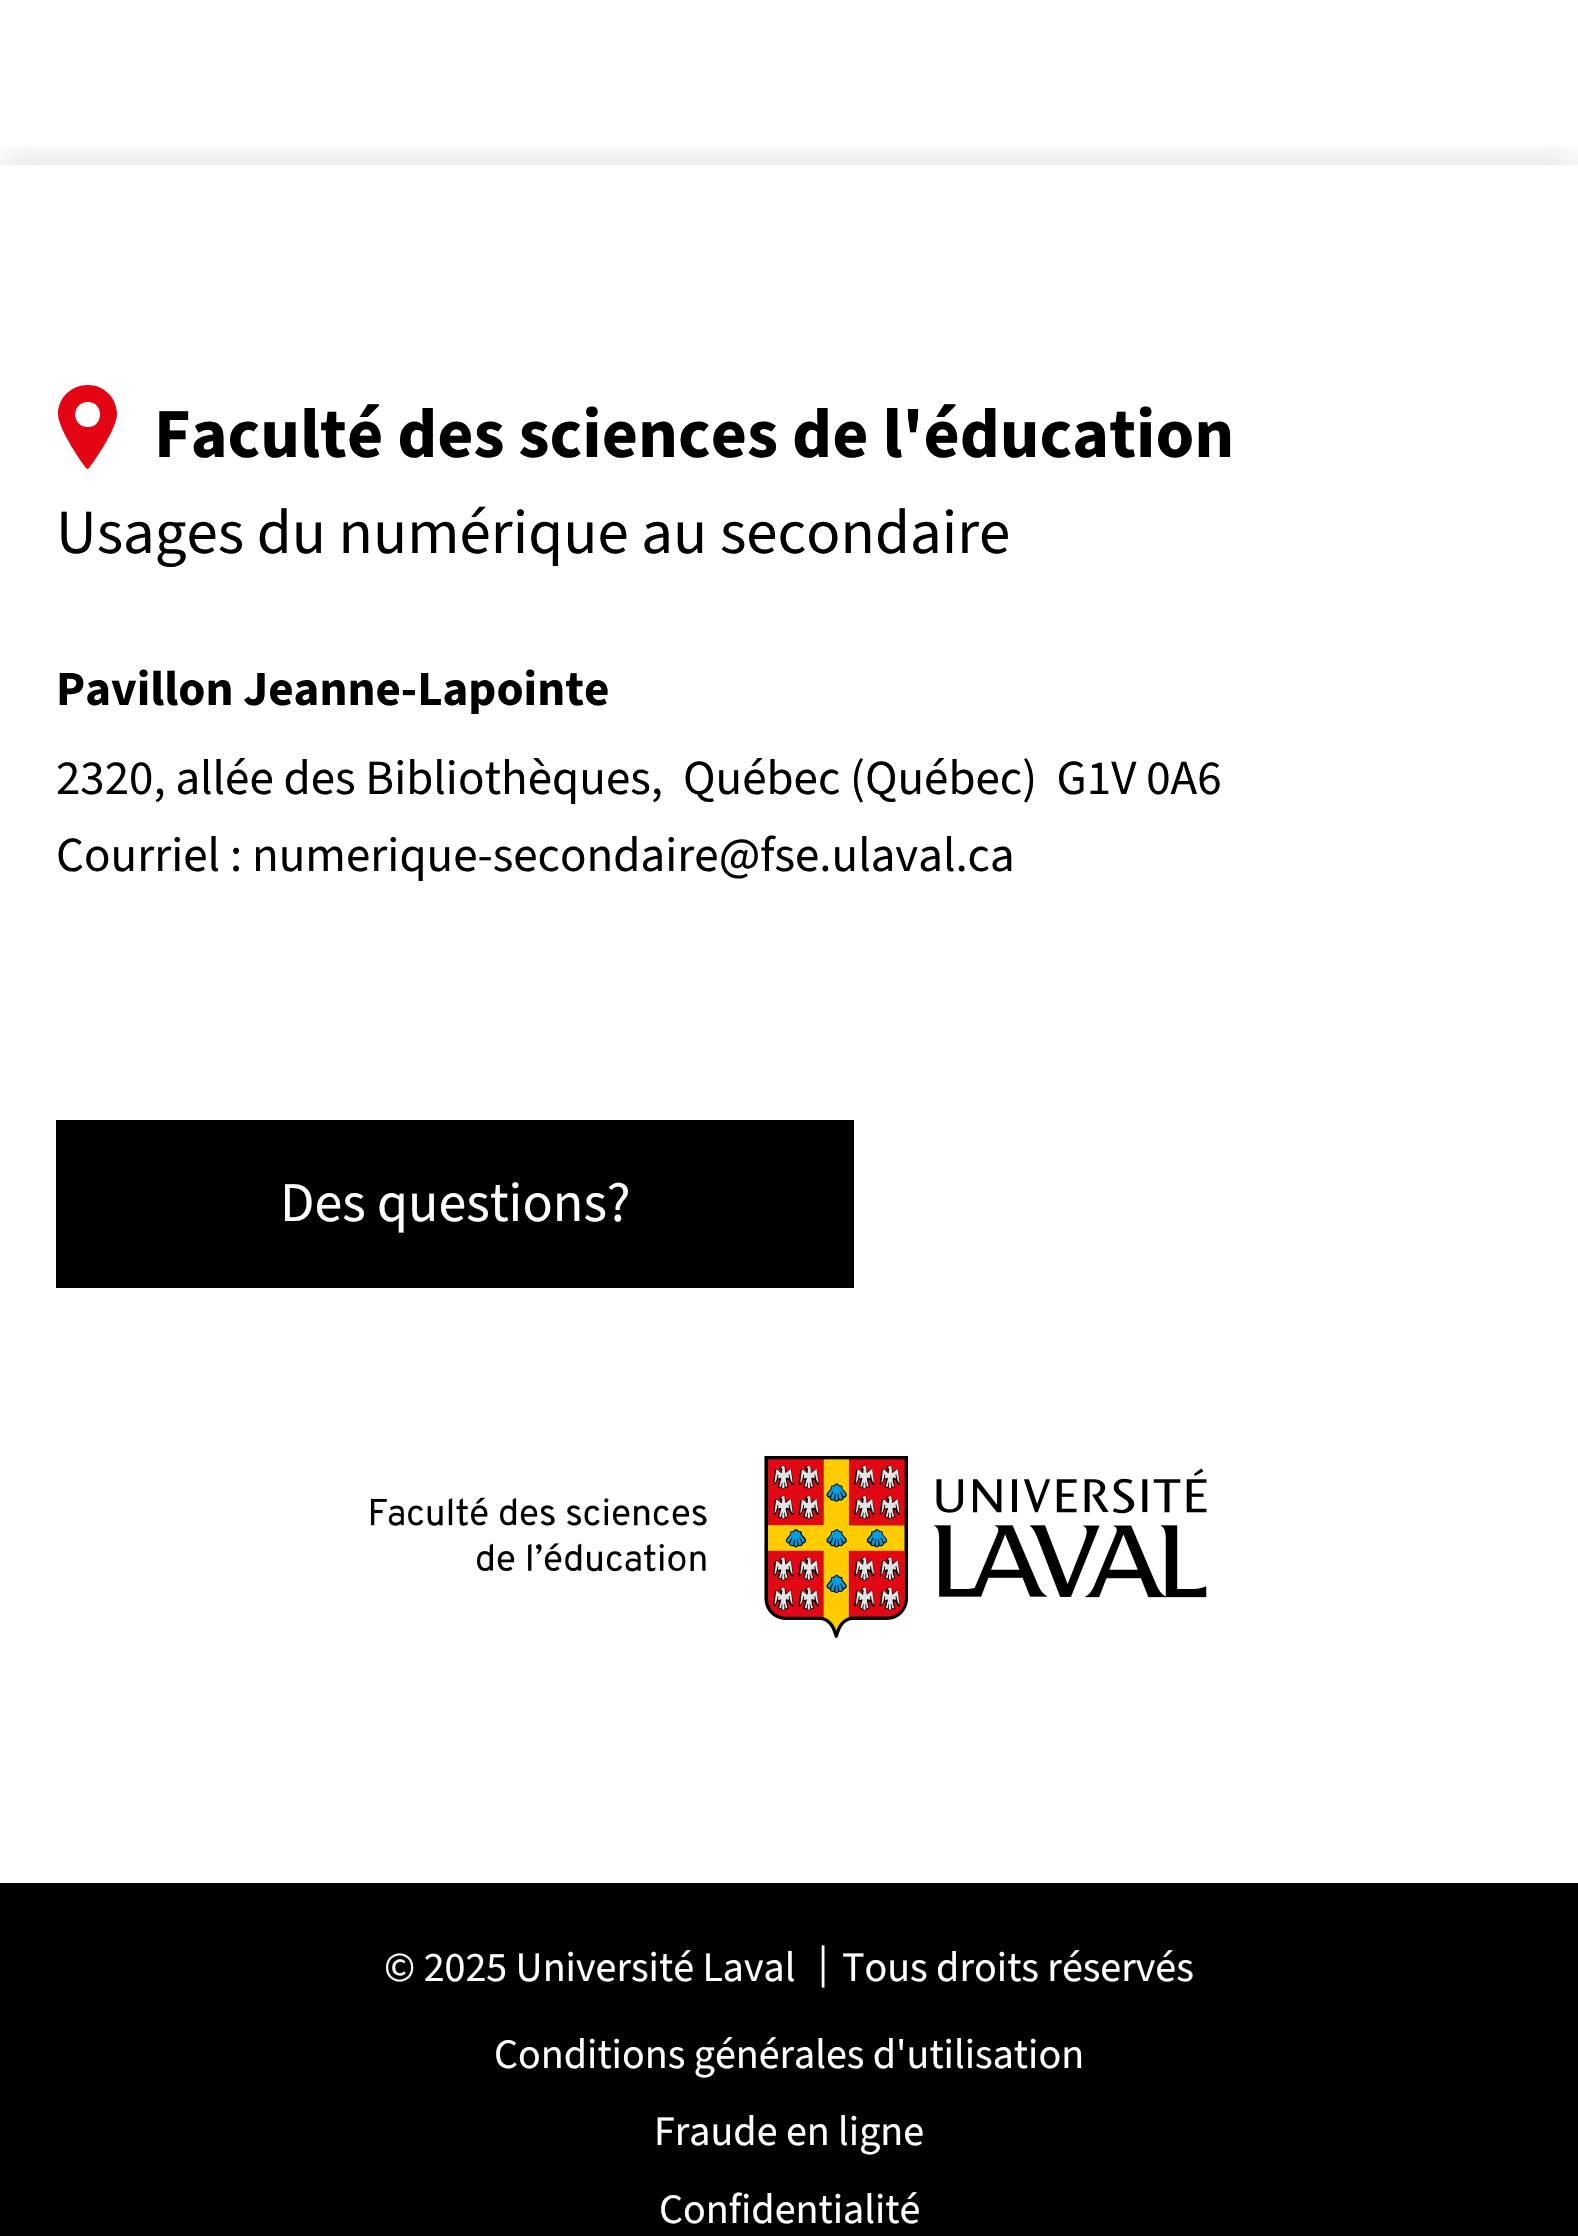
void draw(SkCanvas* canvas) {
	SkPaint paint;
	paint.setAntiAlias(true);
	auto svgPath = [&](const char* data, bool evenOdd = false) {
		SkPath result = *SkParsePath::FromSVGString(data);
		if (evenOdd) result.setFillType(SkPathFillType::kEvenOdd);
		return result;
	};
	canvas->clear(0xffffffff);
	canvas->save();
	canvas->clipRect(SkRect::MakeXYWH(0, 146, 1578, 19));
	paint.setColor(0x26000000);
	paint.setMaskFilter(SkMaskFilter::MakeBlur(kNormal_SkBlurStyle, 17.5));
	canvas->drawRect(SkRect::MakeXYWH(0, 165, 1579, 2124), paint);
	paint.setMaskFilter(nullptr);
	canvas->restore();
	paint.setColor(0xffe30513);
	canvas->drawPath(svgPath("M88 385C71 385 58 398 58 414C58 430 85 467 86 468C87 469 88 469 88 469L89 468C90 467 117 430 117 414C117 398 104 385 88 385ZM88 427C71 427 71 402 88 402C104 402 104 427 88 427Z"), paint);
	SkFont f1(fontMgr->matchFamilyStyle("Source Sans 3", SkFontStyle::Bold()), 70);
	f1.setSubpixel(true);
	paint.setColor(0xff000000);
	canvas->drawString("Faculté des sciences de l'éducation", 154, 457, f1, paint);
	SkFont f2(fontMgr->matchFamilyStyle("Source Sans 3", SkFontStyle::Normal()), 63);
	f2.setSubpixel(true);
	canvas->drawString("Usages du numérique au secondaire", 56, 553, f2, paint);
	SkFont f3(fontMgr->matchFamilyStyle("Source Sans 3", SkFontStyle::Bold()), 49);
	f3.setSubpixel(true);
	canvas->drawString("Pavillon Jeanne-Lapointe", 56, 705, f3, paint);
	SkFont f4(fontMgr->matchFamilyStyle("Source Sans 3", SkFontStyle::Normal()), 49);
	f4.setSubpixel(true);
	canvas->drawString("2320, allée des Bibliothèques,", 56, 794, f4, paint);
	canvas->drawString("Québec (Québec)  G1V 0A6", 683, 794, f4, paint);
	canvas->drawString("Courriel : numerique-secondaire@fse.ulaval.ca", 56, 871, f4, paint);
	canvas->drawRect(SkRect::MakeXYWH(56, 1120, 798, 168), paint);
	SkFont f5(fontMgr->matchFamilyStyle("Source Sans 3", SkFontStyle::Normal()), 56);
	f5.setSubpixel(true);
	paint.setColor(0xffffffff);
	canvas->drawString("Des questions?", 280, 1221, f5, paint);
	canvas->drawImageRect(SkImages::DeferredFromEncodedData(SkData::MakeFromFileName("img1.png")), SkRect::MakeXYWH(371, 1456, 836, 182), SkSamplingOptions());
	paint.setColor(0xff000000);
	canvas->drawRect(SkRect::MakeXYWH(0, 1883, 1578, 353), paint);
	SkFont f6(fontMgr->matchFamilyStyle("Source Sans 3", SkFontStyle::Normal()), 42);
	f6.setSubpixel(true);
	paint.setColor(0xffffffff);
	canvas->drawString("© 2025 Université Laval", 384, 1981, f6, paint);
	canvas->drawString("|", 818, 1977, f6, paint);
	canvas->drawString("Tous droits réservés", 842, 1981, f6, paint);
	canvas->drawString("Conditions générales d'utilisation", 494, 2068, f6, paint);
	canvas->drawString("Fraude en ligne", 654, 2145, f6, paint);
	canvas->drawString("Confidentialité", 659, 2223, f6, paint);
}
